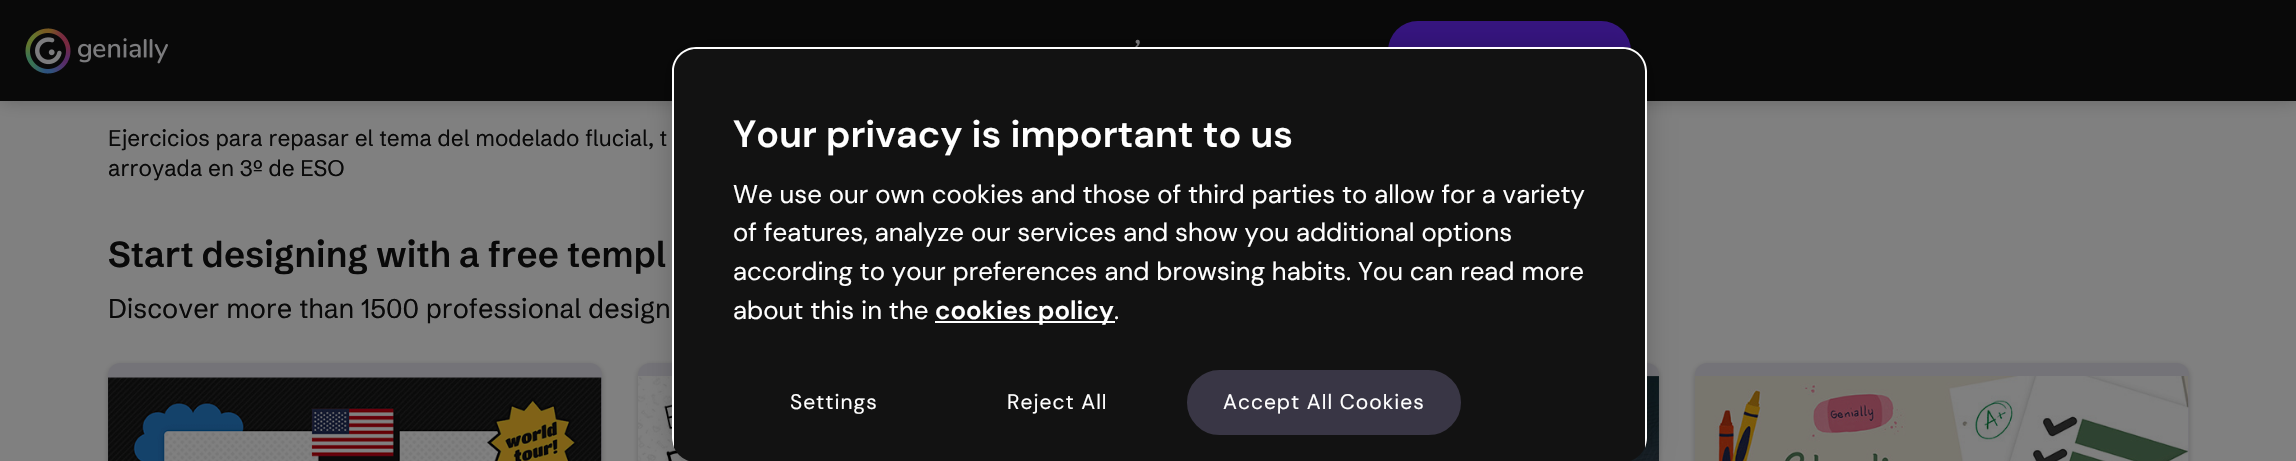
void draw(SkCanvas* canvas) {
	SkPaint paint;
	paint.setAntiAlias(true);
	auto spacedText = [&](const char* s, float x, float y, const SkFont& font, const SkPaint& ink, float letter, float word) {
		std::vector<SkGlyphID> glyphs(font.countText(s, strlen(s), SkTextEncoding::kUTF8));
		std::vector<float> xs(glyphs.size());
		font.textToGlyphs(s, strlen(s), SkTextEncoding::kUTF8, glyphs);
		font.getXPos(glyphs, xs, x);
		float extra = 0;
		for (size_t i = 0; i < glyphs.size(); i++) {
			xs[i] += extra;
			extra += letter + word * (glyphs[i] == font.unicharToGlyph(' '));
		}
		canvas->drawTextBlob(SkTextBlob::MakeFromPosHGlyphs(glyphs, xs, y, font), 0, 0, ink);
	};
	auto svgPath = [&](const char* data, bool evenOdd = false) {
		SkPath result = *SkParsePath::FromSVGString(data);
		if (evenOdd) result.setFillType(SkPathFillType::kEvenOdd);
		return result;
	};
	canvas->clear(0xff808080);
	paint.setColor(0x4d090909);
	paint.setMaskFilter(SkMaskFilter::MakeBlur(kNormal_SkBlurStyle, 10));
	canvas->drawRect(SkRect::MakeXYWH(0, -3, 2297, 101), paint);
	paint.setMaskFilter(nullptr);
	paint.setColor(0xff090909);
	canvas->drawRect(SkRect::MakeXYWH(0, 0, 2296, 101), paint);
	canvas->drawImageRect(SkImages::DeferredFromEncodedData(SkData::MakeFromFileName("img1.png")), SkRect::MakeXYWH(25, 28, 143, 46), SkSamplingOptions());
	SkFont f1(fontMgr->matchFamilyStyle("Schibsted Grotesk", SkFontStyle::Normal()), 27);
	f1.setSubpixel(true);
	paint.setColor(0xff7d7c7e);
	canvas->drawString("’", 1134, 59, f1, paint);
	paint.setColor(0xff361580);
	canvas->drawRoundRect(SkRect::MakeXYWH(1388, 21, 243, 60), 30, 30, paint);
	SkFont f2(fontMgr->matchFamilyStyle("Schibsted Grotesk", SkFontStyle::Normal()), 22.5);
	f2.setSubpixel(true);
	paint.setColor(0xff090909);
	canvas->drawString("Ejercicios para repasar el tema del modelado flucial, t", 108, 146, f2, paint);
	canvas->drawString("arroyada en 3º de ESO", 108, 176, f2, paint);
	SkFont f3(fontMgr->matchFamilyStyle("Schibsted Grotesk", SkFontStyle(600, SkFontStyle::kNormal_Width, SkFontStyle::kUpright_Slant)), 36);
	f3.setSubpixel(true);
	canvas->drawString("Start designing with a free templ", 108, 267, f3, paint);
	canvas->drawString("Discover more than 1500 professional design", 108, 318, f1, paint);
	paint.setColor(0x33090909);
	paint.setMaskFilter(SkMaskFilter::MakeBlur(kNormal_SkBlurStyle, 3));
	canvas->drawRoundRect(SkRect::MakeXYWH(108, 365, 494, 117), 12, 12, paint);
	paint.setMaskFilter(nullptr);
	paint.setColor(0xff747378);
	canvas->drawRoundRect(SkRect::MakeXYWH(108, 363, 494, 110), 12, 12, paint);
	canvas->drawImageRect(SkImages::DeferredFromEncodedData(SkData::MakeFromFileName("img2.png")), SkRect::MakeXYWH(108, 377, 494, 84), SkSamplingOptions());
	paint.setColor(0x33090909);
	paint.setMaskFilter(SkMaskFilter::MakeBlur(kNormal_SkBlurStyle, 3));
	canvas->drawRoundRect(SkRect::MakeXYWH(638, 365, 493, 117), 12, 12, paint);
	paint.setMaskFilter(nullptr);
	paint.setColor(0xff747378);
	canvas->drawRoundRect(SkRect::MakeXYWH(638, 363, 493, 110), 12, 12, paint);
	canvas->drawImageRect(SkImages::DeferredFromEncodedData(SkData::MakeFromFileName("img3.png")), SkRect::MakeXYWH(638, 376, 51, 85), SkSamplingOptions());
	paint.setColor(0x33090909);
	paint.setMaskFilter(SkMaskFilter::MakeBlur(kNormal_SkBlurStyle, 3));
	canvas->drawRoundRect(SkRect::MakeXYWH(1167, 365, 492, 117), 12, 12, paint);
	paint.setMaskFilter(nullptr);
	paint.setColor(0xff747378);
	canvas->drawRoundRect(SkRect::MakeXYWH(1167, 363, 492, 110), 12, 12, paint);
	canvas->drawImageRect(SkImages::DeferredFromEncodedData(SkData::MakeFromFileName("img4.png")), SkRect::MakeXYWH(1630, 376, 29, 85), SkSamplingOptions());
	paint.setColor(0x33090909);
	paint.setMaskFilter(SkMaskFilter::MakeBlur(kNormal_SkBlurStyle, 3));
	canvas->drawRoundRect(SkRect::MakeXYWH(1695, 365, 494, 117), 12, 12, paint);
	paint.setMaskFilter(nullptr);
	paint.setColor(0xff747378);
	canvas->drawRoundRect(SkRect::MakeXYWH(1695, 363, 494, 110), 12, 12, paint);
	canvas->drawImageRect(SkImages::DeferredFromEncodedData(SkData::MakeFromFileName("img5.png")), SkRect::MakeXYWH(1695, 376, 494, 85), SkSamplingOptions());
	paint.setColor(0x33000000);
	paint.setMaskFilter(SkMaskFilter::MakeBlur(kNormal_SkBlurStyle, 13.5));
	canvas->drawRoundRect(SkRect::MakeXYWH(672, 47, 975, 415), 24, 24, paint);
	paint.setMaskFilter(nullptr);
	paint.setColor(0xff121212);
	canvas->drawRoundRect(SkRect::MakeXYWH(672, 47, 975, 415), 24, 24, paint);
	paint.setColor(0xffffffff);
	canvas->drawPath(svgPath("M696 47C683 47 672 58 672 71V438C672 441 673 445 674 448V71C674 59 684 49 696 49H1623C1635 49 1645 59 1645 71V448C1646 445 1647 441 1647 438V71C1647 58 1636 47 1623 47Z"), paint);
	SkFont f4(fontMgr->matchFamilyStyle("DM Sans", SkFontStyle(600, SkFontStyle::kNormal_Width, SkFontStyle::kUpright_Slant)), 37.75);
	f4.setSubpixel(true);
	canvas->drawString("Your privacy is important to us", 733, 147, f4, paint);
	SkFont f5(fontMgr->matchFamilyStyle("DM Sans", SkFontStyle::Normal()), 25.8);
	f5.setSubpixel(true);
	canvas->drawString("We use our own cookies and those of third parties to allow for a variety", 733, 203, f5, paint);
	canvas->drawString("of features, analyze our services and show you additional options", 733, 241, f5, paint);
	canvas->drawString("according to your preferences and browsing habits. You can read more", 733, 280, f5, paint);
	canvas->drawString("about this in the", 733, 319, f5, paint);
	canvas->drawRect(SkRect::MakeXYWH(935, 321, 180, 2), paint);
	SkFont f6(fontMgr->matchFamilyStyle("DM Sans", SkFontStyle(600, SkFontStyle::kNormal_Width, SkFontStyle::kUpright_Slant)), 25.8);
	f6.setSubpixel(true);
	canvas->drawString("cookies policy", 935, 319, f6, paint);
	canvas->drawString(".", 1114, 319, f5, paint);
	SkFont f7(fontMgr->matchFamilyStyle("DM Sans", SkFontStyle::Normal()), 21);
	f7.setSubpixel(true);
	spacedText("Settings", 790, 409, f7, paint, 1, 0);
	spacedText("Reject All", 1007, 409, f7, paint, 1, 0);
	paint.setColor(0xff393645);
	canvas->drawRoundRect(SkRect::MakeXYWH(1186, 369, 276, 67), 33.5, 33.5, paint);
	paint.setStroke(true);
	paint.setStrokeWidth(2);
	paint.setColor(0xff121212);
	canvas->drawRoundRect(SkRect::MakeXYWH(1186, 369, 276, 67), 33.5, 33.5, paint);
	paint.setStroke(false);
	paint.setColor(0xffffffff);
	spacedText("Accept All Cookies", 1223, 409, f7, paint, 1, 0);
}
